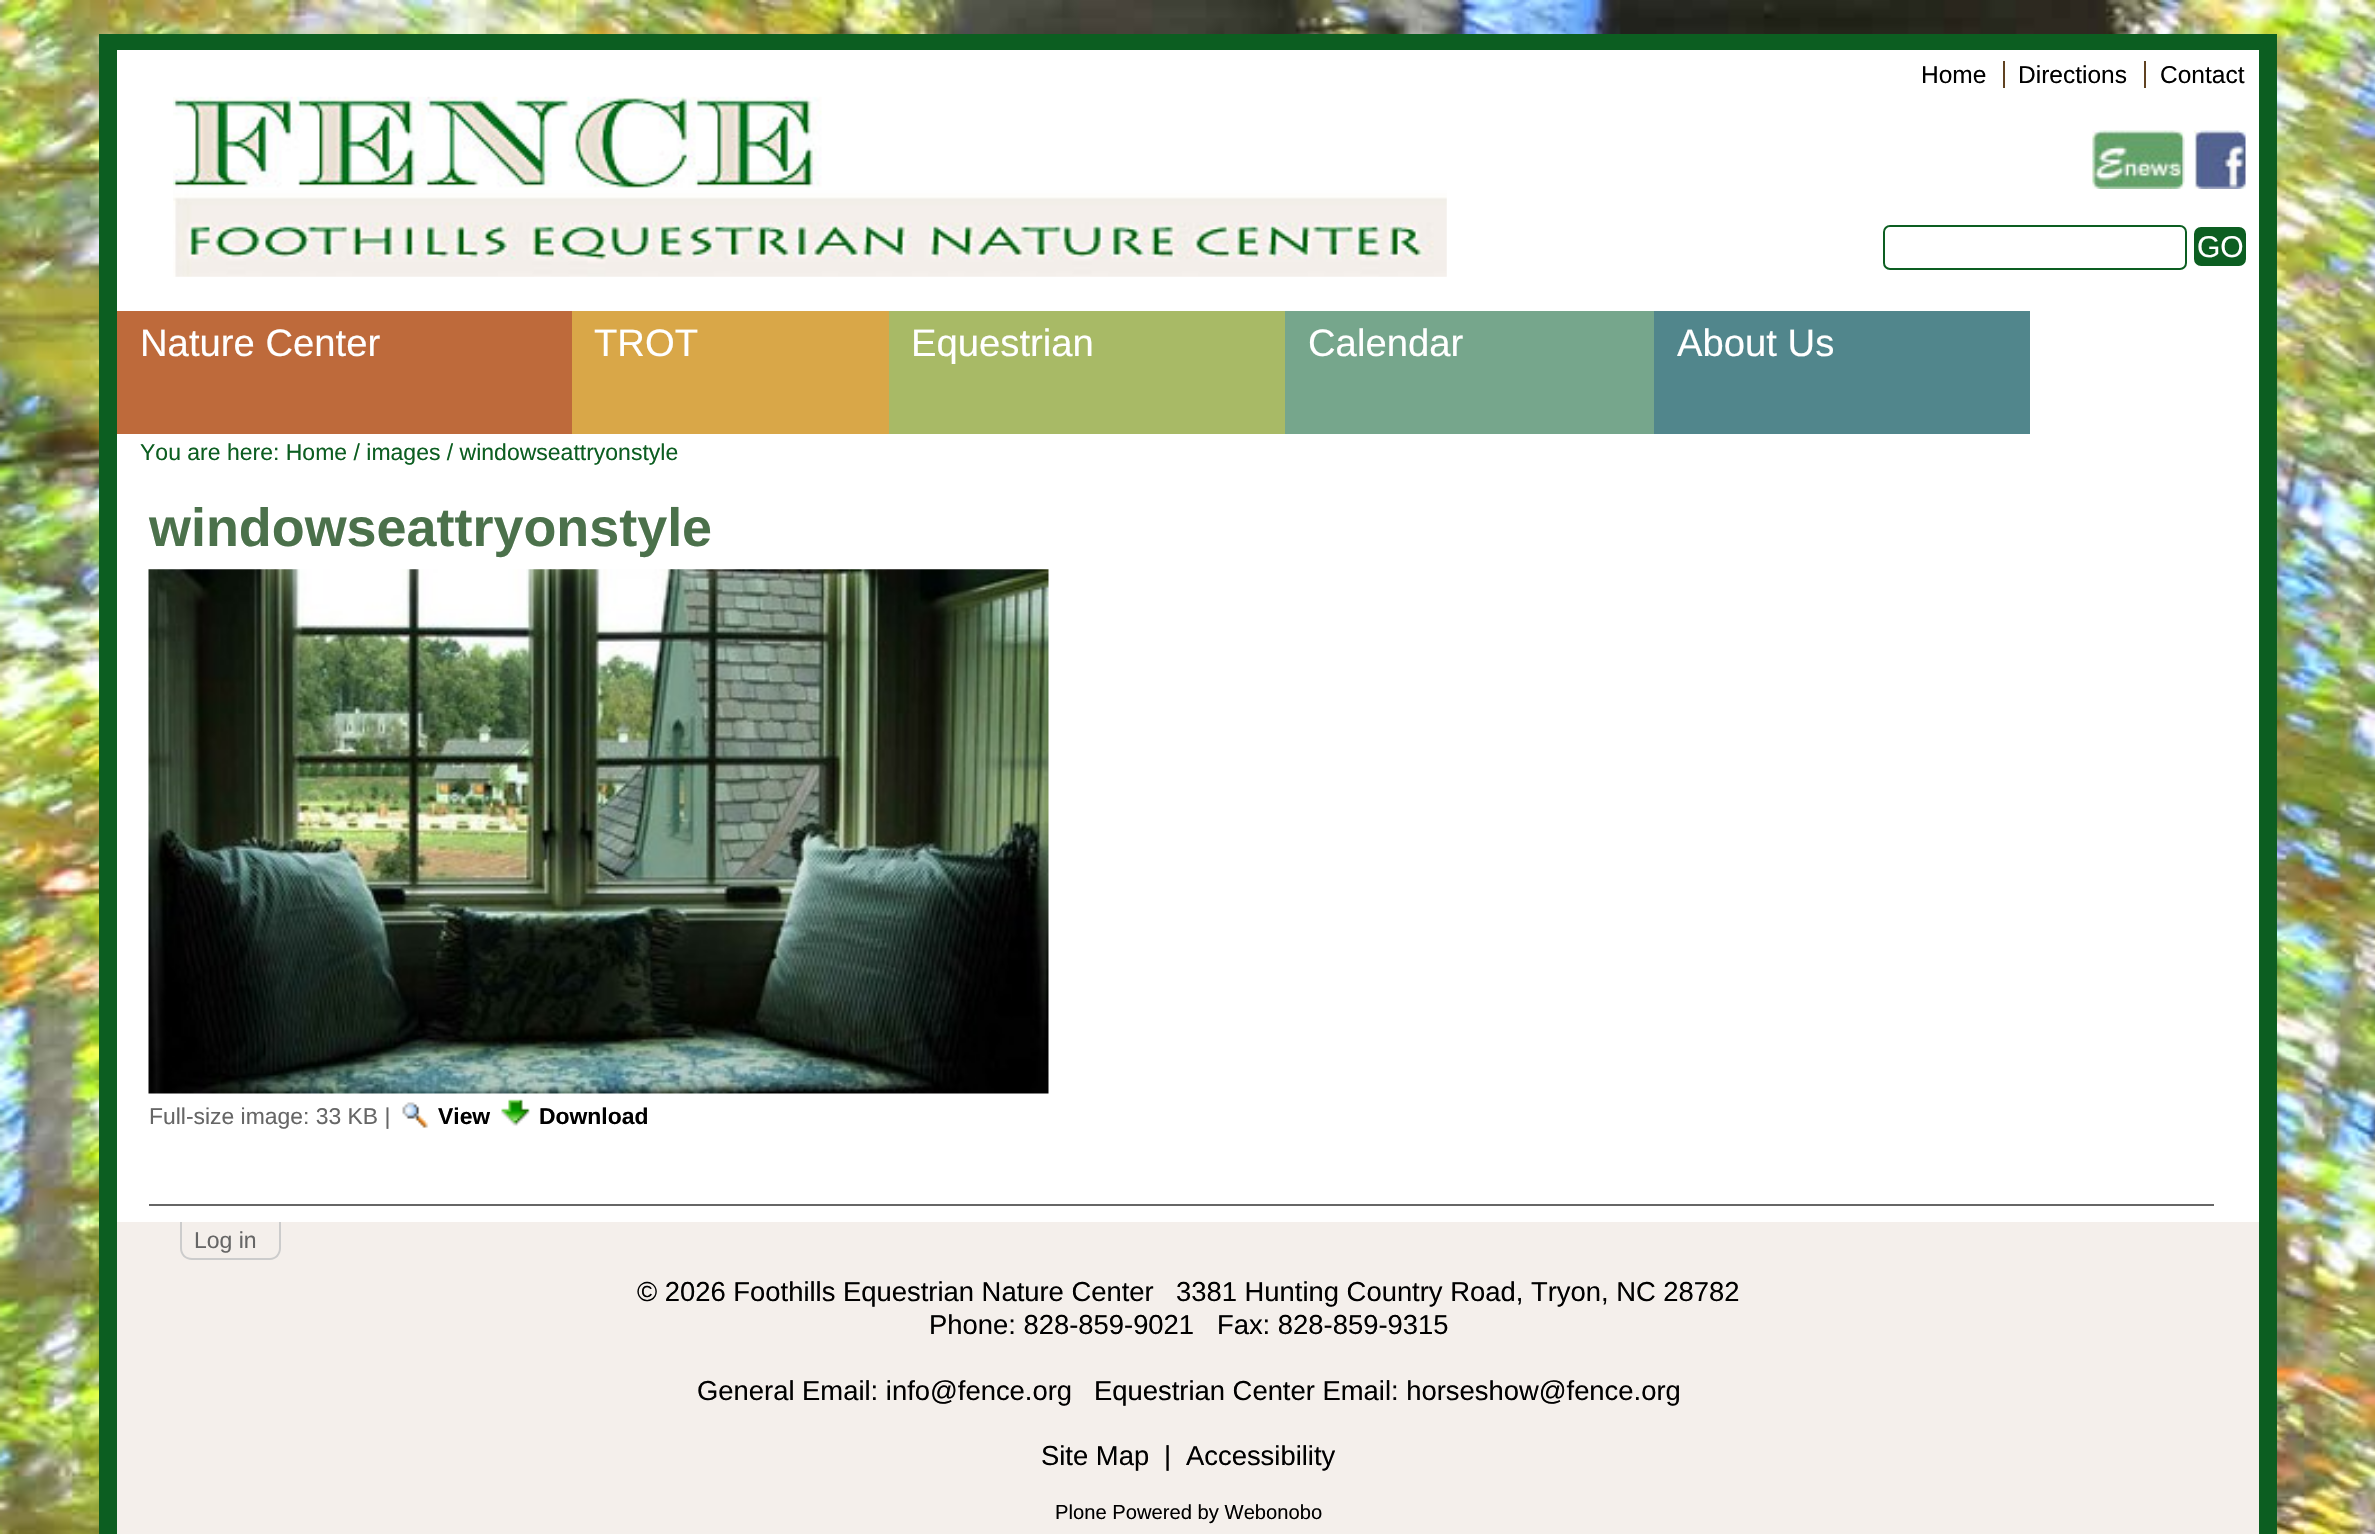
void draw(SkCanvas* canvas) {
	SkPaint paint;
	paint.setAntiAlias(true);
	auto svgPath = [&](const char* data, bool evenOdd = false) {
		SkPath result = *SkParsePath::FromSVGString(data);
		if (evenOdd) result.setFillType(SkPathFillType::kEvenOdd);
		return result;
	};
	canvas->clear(0xffffffff);
	canvas->drawImageRect(SkImages::DeferredFromEncodedData(SkData::MakeFromFileName("img1.png")), SkRect::MakeXYWH(0, 0, 2375, 1534), SkSamplingOptions());
	paint.setColor(0xffffffff);
	canvas->drawRect(SkRect::MakeXYWH(117, 434, 2142, 788), paint);
	paint.setStroke(true);
	paint.setStrokeWidth(18);
	paint.setColor(0xff0c5e21);
	canvas->drawPath(svgPath("M108 43H2268V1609H108Z"), paint);
	paint.setStroke(false);
	paint.setColor(0xffffffff);
	canvas->drawRect(SkRect::MakeXYWH(117, 50, 2142, 384), paint);
	SkFont f1(fontMgr->matchFamilyStyle("Liberation Sans", SkFontStyle::Normal()), 24.5);
	f1.setSubpixel(true);
	paint.setColor(0xff000000);
	canvas->drawString("Home", 1921, 83, f1, paint);
	paint.setColor(0xff604222);
	canvas->drawRect(SkRect::MakeXYWH(2003, 61, 2, 27), paint);
	paint.setColor(0xff000000);
	canvas->drawString("Directions", 2018, 83, f1, paint);
	paint.setColor(0xff604222);
	canvas->drawRect(SkRect::MakeXYWH(2144, 61, 2, 27), paint);
	paint.setColor(0xff000000);
	canvas->drawString("Contact", 2160, 83, f1, paint);
	canvas->drawImageRect(SkImages::DeferredFromEncodedData(SkData::MakeFromFileName("img2.png")), SkRect::MakeXYWH(173, 96, 1274, 181), SkSamplingOptions());
	canvas->drawImageRect(SkImages::DeferredFromEncodedData(SkData::MakeFromFileName("img3.png")), SkRect::MakeXYWH(2092, 130, 93, 59), SkSamplingOptions());
	canvas->drawImageRect(SkImages::DeferredFromEncodedData(SkData::MakeFromFileName("img4.png")), SkRect::MakeXYWH(2193, 130, 53, 59), SkSamplingOptions());
	paint.setStroke(true);
	paint.setStrokeWidth(2);
	paint.setColor(0xff0c5e21);
	canvas->drawRoundRect(SkRect::MakeXYWH(1884, 226, 302, 43), 6, 6, paint);
	paint.setStroke(false);
	canvas->drawRoundRect(SkRect::MakeXYWH(2195, 228, 50, 37), 6, 6, paint);
	paint.setStroke(true);
	canvas->drawRoundRect(SkRect::MakeXYWH(2195, 228, 50, 37), 6, 6, paint);
	SkFont f2(fontMgr->matchFamilyStyle("Liberation Sans", SkFontStyle::Normal()), 30);
	f2.setSubpixel(true);
	paint.setStroke(false);
	paint.setColor(0xffffffff);
	canvas->drawString("GO", 2197, 257, f2, paint);
	paint.setColor(0xffbe6a3b);
	canvas->drawRect(SkRect::MakeXYWH(117, 311, 455, 123), paint);
	SkFont f3(fontMgr->matchFamilyStyle("Liberation Sans", SkFontStyle::Normal()), 38.25);
	f3.setSubpixel(true);
	paint.setColor(0xffffffff);
	canvas->drawString("Nature Center", 140, 356, f3, paint);
	paint.setColor(0xffd9a748);
	canvas->drawRect(SkRect::MakeXYWH(572, 311, 317, 123), paint);
	paint.setColor(0xffffffff);
	canvas->drawString("TROT", 594, 356, f3, paint);
	paint.setColor(0xffa8ba66);
	canvas->drawRect(SkRect::MakeXYWH(889, 311, 396, 123), paint);
	paint.setColor(0xffffffff);
	canvas->drawString("Equestrian", 911, 356, f3, paint);
	paint.setColor(0xff76a68c);
	canvas->drawRect(SkRect::MakeXYWH(1285, 311, 369, 123), paint);
	paint.setColor(0xffffffff);
	canvas->drawString("Calendar", 1308, 356, f3, paint);
	paint.setColor(0xff51868c);
	canvas->drawRect(SkRect::MakeXYWH(1654, 311, 376, 123), paint);
	paint.setColor(0xffffffff);
	canvas->drawString("About Us", 1677, 356, f3, paint);
	SkFont f4(fontMgr->matchFamilyStyle("Liberation Sans", SkFontStyle::Normal()), 23);
	f4.setSubpixel(true);
	paint.setColor(0xff0c5e21);
	canvas->drawString("You are here: Home / images / windowseattryonstyle", 140, 460, f4, paint);
	SkFont f5(fontMgr->matchFamilyStyle("Liberation Sans", SkFontStyle::Bold()), 53.9);
	f5.setSubpixel(true);
	paint.setColor(0xff4b714b);
	canvas->drawString("windowseattryonstyle", 149, 546, f5, paint);
	canvas->drawImageRect(SkImages::DeferredFromEncodedData(SkData::MakeFromFileName("img5.png")), SkRect::MakeXYWH(148, 569, 901, 525), SkSamplingOptions());
	SkFont f6(fontMgr->matchFamilyStyle("Liberation Sans", SkFontStyle::Normal()), 22.9);
	f6.setSubpixel(true);
	paint.setColor(0xff666666);
	canvas->drawString("Full-size image: 33 KB |", 149, 1124, f6, paint);
	canvas->drawImageRect(SkImages::DeferredFromEncodedData(SkData::MakeFromFileName("img6.png")), SkRect::MakeXYWH(402, 1102, 27, 26), SkSamplingOptions());
	SkFont f7(fontMgr->matchFamilyStyle("Liberation Sans", SkFontStyle::Bold()), 22.9);
	f7.setSubpixel(true);
	paint.setColor(0xff000000);
	canvas->drawString("View", 438, 1124, f7, paint);
	canvas->drawImageRect(SkImages::DeferredFromEncodedData(SkData::MakeFromFileName("img7.png")), SkRect::MakeXYWH(501, 1099, 29, 27), SkSamplingOptions());
	canvas->drawString("Download", 539, 1124, f7, paint);
	paint.setColor(0xff666666);
	canvas->drawRect(SkRect::MakeXYWH(149, 1204, 2065, 2), paint);
	paint.setColor(0xfff4efeb);
	canvas->drawRect(SkRect::MakeXYWH(117, 1222, 2142, 312), paint);
	paint.setColor(0xffcccccc);
	canvas->drawPath(svgPath("M180 1222H281V1248C281 1255 276 1260 270 1260H192C185 1260 180 1255 180 1248ZM182 1222H279V1248C279 1254 275 1258 270 1258H192C186 1258 182 1254 182 1248Z", true), paint);
	paint.setColor(0xff666666);
	canvas->drawString("Log in", 194, 1248, f4, paint);
	SkFont f8(fontMgr->matchFamilyStyle("Liberation Sans", SkFontStyle::Normal()), 27.4);
	f8.setSubpixel(true);
	paint.setColor(0xff000000);
	canvas->drawString("© 2026 Foothills Equestrian Nature Center", 637, 1301, f8, paint);
	canvas->drawString("3381 Hunting Country Road, Tryon, NC 28782", 1176, 1301, f8, paint);
	canvas->drawString("Phone: 828-859-9021   Fax: 828-859-9315", 929, 1334, f8, paint);
	canvas->drawString("General Email: info@fence.org", 697, 1400, f8, paint);
	canvas->drawString("Equestrian Center Email: horseshow@fence.org", 1094, 1400, f8, paint);
	canvas->drawString("Site Map", 1041, 1465, f8, paint);
	canvas->drawString("|", 1164, 1465, f8, paint);
	canvas->drawString("Accessibility", 1186, 1465, f8, paint);
	SkFont f9(fontMgr->matchFamilyStyle("Liberation Sans", SkFontStyle::Normal()), 20.2);
	f9.setSubpixel(true);
	canvas->drawString("Plone Powered by Webonobo", 1055, 1519, f9, paint);
}
